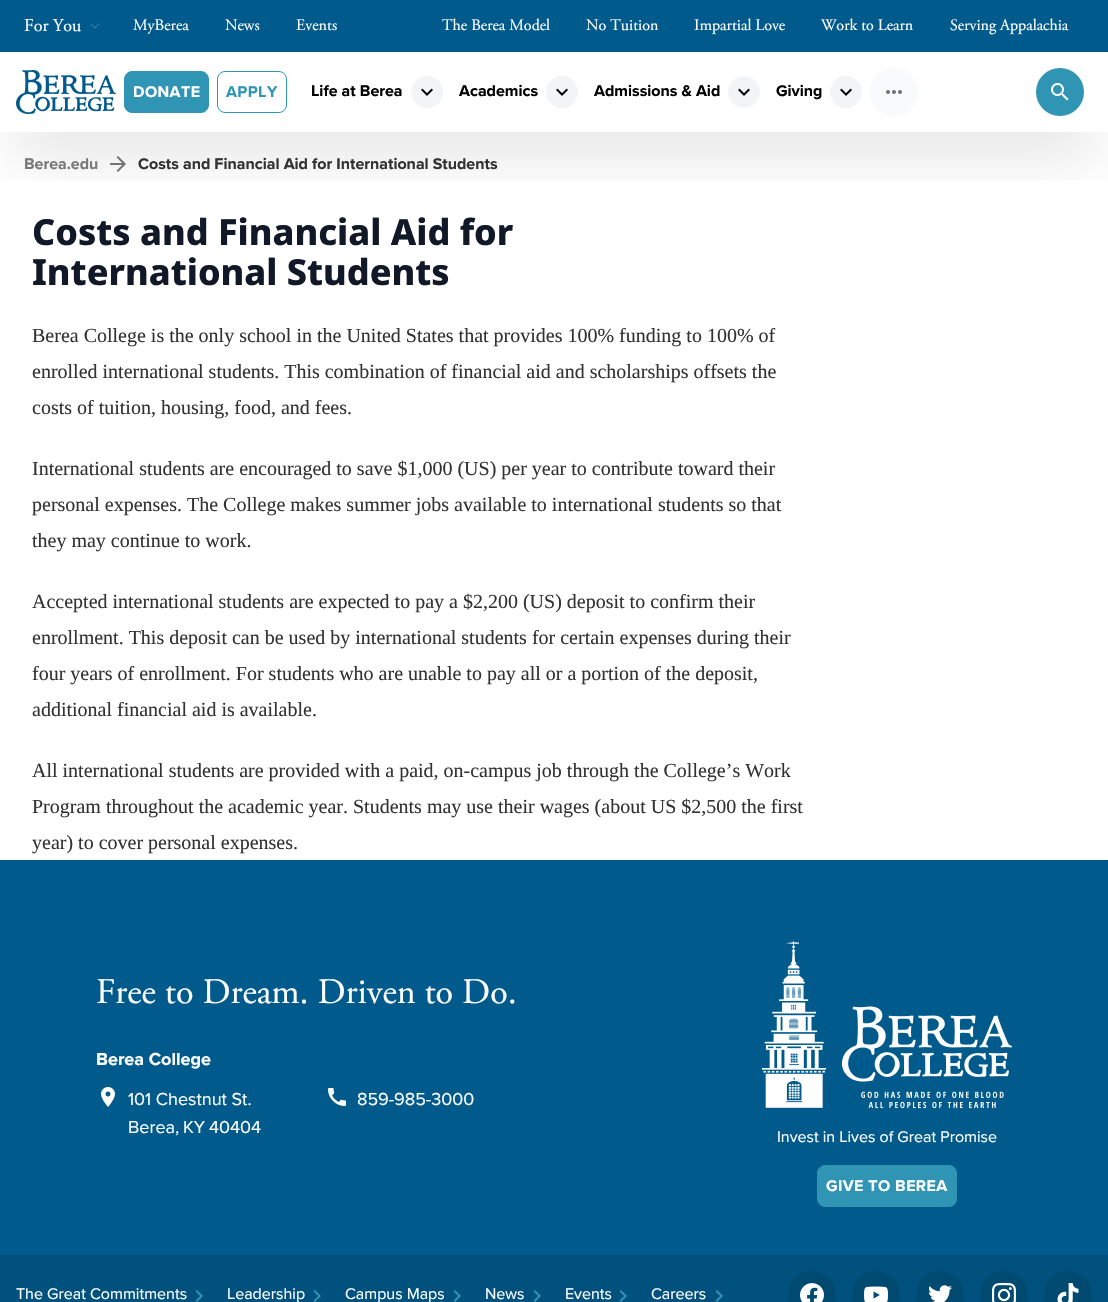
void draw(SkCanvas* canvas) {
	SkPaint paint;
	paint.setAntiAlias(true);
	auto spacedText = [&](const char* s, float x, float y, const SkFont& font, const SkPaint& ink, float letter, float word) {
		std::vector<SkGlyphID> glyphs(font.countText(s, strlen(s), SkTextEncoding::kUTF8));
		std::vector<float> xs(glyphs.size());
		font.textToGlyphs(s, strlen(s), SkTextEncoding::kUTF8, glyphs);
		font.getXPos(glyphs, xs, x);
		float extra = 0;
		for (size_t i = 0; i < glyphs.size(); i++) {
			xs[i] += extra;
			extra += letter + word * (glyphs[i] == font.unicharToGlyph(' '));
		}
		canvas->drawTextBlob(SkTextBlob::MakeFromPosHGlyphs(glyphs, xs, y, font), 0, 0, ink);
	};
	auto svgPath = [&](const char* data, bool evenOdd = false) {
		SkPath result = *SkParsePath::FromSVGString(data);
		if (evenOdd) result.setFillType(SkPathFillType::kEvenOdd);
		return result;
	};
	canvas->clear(0xffffffff);
	paint.setColor(0xff005a8b);
	canvas->drawRect(SkRect::MakeXYWH(0, 0, 1108, 52), paint);
	canvas->drawImageRect(SkImages::DeferredFromEncodedData(SkData::MakeFromFileName("img5.png")), SkRect::MakeXYWH(110, 156, 16, 16), SkSamplingOptions());
	canvas->save();
	canvas->clipRect(SkRect::MakeXYWH(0, 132, 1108, 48));
	paint.setColor(0x1f000000);
	paint.setMaskFilter(SkMaskFilter::MakeBlur(kNormal_SkBlurStyle, 30));
	canvas->drawRect(SkRect::MakeXYWH(15, 102, 1078, 50), paint);
	paint.setMaskFilter(nullptr);
	canvas->restore();
	SkFont f1(fontMgr->matchFamilyStyle("Adobe Garamond", SkFontStyle::Normal()), 18);
	f1.setSubpixel(true);
	paint.setColor(0xffffffff);
	canvas->drawString("For You", 24, 31, f1, paint);
	paint.setStroke(true);
	paint.setStrokeWidth(1);
	paint.setStrokeCap(SkPaint::kRound_Cap);
	paint.setStrokeJoin(SkPaint::kRound_Join);
	paint.setColor(0xff3095b4);
	canvas->drawPath(svgPath("M99 24L95 28L91 24"), paint);
	SkFont f2(fontMgr->matchFamilyStyle("Adobe Garamond", SkFontStyle::Normal()), 16);
	f2.setSubpixel(true);
	paint.setStroke(false);
	paint.setColor(0xffffffff);
	canvas->drawString("MyBerea", 133, 30, f2, paint);
	canvas->drawString("News", 225, 30, f2, paint);
	canvas->drawString("Events", 296, 30, f2, paint);
	canvas->drawString("The Berea Model", 442, 30, f2, paint);
	canvas->drawString("No Tuition", 586, 30, f2, paint);
	canvas->drawString("Impartial Love", 694, 30, f2, paint);
	canvas->drawString("Work to Learn", 821, 30, f2, paint);
	canvas->drawString("Serving Appalachia", 950, 30, f2, paint);
	canvas->drawImageRect(SkImages::DeferredFromEncodedData(SkData::MakeFromFileName("img1.png")), SkRect::MakeXYWH(16, 70, 100, 44), SkSamplingOptions());
	paint.setColor(0xff3095b4);
	canvas->drawRoundRect(SkRect::MakeXYWH(124.5, 71.5, 84, 41), 7.5, 7.5, paint);
	paint.setStroke(true);
	paint.setStrokeCap(SkPaint::kButt_Cap);
	paint.setStrokeJoin(SkPaint::kMiter_Join);
	canvas->drawRoundRect(SkRect::MakeXYWH(124.5, 71.5, 84, 41), 7.5, 7.5, paint);
	SkFont f3(fontMgr->matchFamilyStyle("Proxima Nova", SkFontStyle::Bold()), 16);
	f3.setSubpixel(true);
	paint.setStroke(false);
	paint.setColor(0xffffffff);
	spacedText("DONATE", 133, 97, f3, paint, 0.4, 0);
	paint.setStroke(true);
	paint.setColor(0xff3095b4);
	canvas->drawRoundRect(SkRect::MakeXYWH(217.5, 71.5, 69, 41), 7.5, 7.5, paint);
	paint.setStroke(false);
	spacedText("APPLY", 226, 97, f3, paint, 0.4, 0);
	paint.setColor(0xff000000);
	canvas->drawString("Life at Berea", 311, 96, f3, paint);
	paint.setColor(0xfff3f4f6);
	canvas->drawCircle(427, 92, 16, paint);
	canvas->drawImageRect(SkImages::DeferredFromEncodedData(SkData::MakeFromFileName("img2.png")), SkRect::MakeXYWH(421, 88, 12, 8), SkSamplingOptions());
	paint.setColor(0xff000000);
	canvas->drawString("Academics", 459, 96, f3, paint);
	paint.setColor(0xfff3f4f6);
	canvas->drawCircle(562, 92, 16, paint);
	canvas->drawImageRect(SkImages::DeferredFromEncodedData(SkData::MakeFromFileName("img2.png")), SkRect::MakeXYWH(556, 88, 12, 8), SkSamplingOptions());
	paint.setColor(0xff000000);
	canvas->drawString("Admissions & Aid", 594, 96, f3, paint);
	paint.setColor(0xfff3f4f6);
	canvas->drawCircle(744, 92, 16, paint);
	canvas->drawImageRect(SkImages::DeferredFromEncodedData(SkData::MakeFromFileName("img2.png")), SkRect::MakeXYWH(738, 88, 12, 8), SkSamplingOptions());
	paint.setColor(0xff000000);
	canvas->drawString("Giving", 776, 96, f3, paint);
	paint.setColor(0xfff3f4f6);
	canvas->drawCircle(846, 92, 16, paint);
	canvas->drawImageRect(SkImages::DeferredFromEncodedData(SkData::MakeFromFileName("img2.png")), SkRect::MakeXYWH(840, 88, 12, 8), SkSamplingOptions());
	paint.setColor(0xfff9fafb);
	canvas->drawCircle(894, 92, 24, paint);
	canvas->drawImageRect(SkImages::DeferredFromEncodedData(SkData::MakeFromFileName("img3.png")), SkRect::MakeXYWH(886, 90, 16, 4), SkSamplingOptions());
	paint.setColor(0xff3095b4);
	canvas->drawCircle(1060, 92, 24, paint);
	canvas->drawImageRect(SkImages::DeferredFromEncodedData(SkData::MakeFromFileName("img4.png")), SkRect::MakeXYWH(1051, 83, 18, 18), SkSamplingOptions());
	paint.setColor(0xff787878);
	canvas->drawString("Berea.edu", 24, 169, f3, paint);
	paint.setColor(0xff323232);
	canvas->drawString("Costs and Financial Aid for International Students", 138, 169, f3, paint);
	SkFont f4(fontMgr->matchFamilyStyle("Noto Sans", SkFontStyle(800, SkFontStyle::kNormal_Width, SkFontStyle::kUpright_Slant)), 36);
	f4.setSubpixel(true);
	paint.setColor(0xff111827);
	canvas->drawString("Costs and Financial Aid for", 32, 245, f4, paint);
	canvas->drawString("International Students", 32, 285, f4, paint);
	SkFont f5(fontMgr->matchFamilyStyle("Liberation Serif", SkFontStyle::Normal()), 20);
	f5.setSubpixel(true);
	paint.setColor(0xff323232);
	canvas->drawString("Berea College is the only school in the United States that provides 100% funding to 100% of", 32, 342, f5, paint);
	canvas->drawString("enrolled international students. This combination of financial aid and scholarships offsets the", 32, 378, f5, paint);
	canvas->drawString("costs of tuition, housing, food, and fees.", 32, 414, f5, paint);
	canvas->drawString("International students are encouraged to save $1,000 (US) per year to contribute toward their", 32, 475, f5, paint);
	canvas->drawString("personal expenses. The College makes summer jobs available to international students so that", 32, 511, f5, paint);
	canvas->drawString("they may continue to work.", 32, 547, f5, paint);
	canvas->drawString("Accepted international students are expected to pay a $2,200 (US) deposit to confirm their", 32, 608, f5, paint);
	canvas->drawString("enrollment. This deposit can be used by international students for certain expenses during their", 32, 644, f5, paint);
	canvas->drawString("four years of enrollment. For students who are unable to pay all or a portion of the deposit,", 32, 680, f5, paint);
	canvas->drawString("additional financial aid is available.", 32, 716, f5, paint);
	canvas->drawString("All international students are provided with a paid, on-campus job through the College’s Work", 32, 777, f5, paint);
	canvas->drawString("Program throughout the academic year. Students may use their wages (about US $2,500 the first", 32, 813, f5, paint);
	canvas->drawString("year) to cover personal expenses.", 32, 849, f5, paint);
	paint.setColor(0xff005a8b);
	canvas->drawRect(SkRect::MakeXYWH(0, 860, 1108, 395), paint);
	SkFont f6(fontMgr->matchFamilyStyle("Adobe Garamond", SkFontStyle::Normal()), 36);
	f6.setSubpixel(true);
	paint.setColor(0xffffffff);
	canvas->drawString("Free to Dream. Driven to Do.", 96, 1003, f6, paint);
	SkFont f7(fontMgr->matchFamilyStyle("Proxima Nova", SkFontStyle::Bold()), 18);
	f7.setSubpixel(true);
	canvas->drawString("Berea College", 96, 1065, f7, paint);
	canvas->drawImageRect(SkImages::DeferredFromEncodedData(SkData::MakeFromFileName("img6.png")), SkRect::MakeXYWH(101, 1087, 14, 20), SkSamplingOptions());
	SkFont f8(fontMgr->matchFamilyStyle("Proxima Nova", SkFontStyle::Normal()), 18);
	f8.setSubpixel(true);
	canvas->drawString("101 Chestnut St.", 128, 1105, f8, paint);
	canvas->drawString("Berea,", 128, 1133, f8, paint);
	canvas->drawString("KY", 183, 1133, f8, paint);
	canvas->drawString("40404", 209, 1133, f8, paint);
	canvas->drawImageRect(SkImages::DeferredFromEncodedData(SkData::MakeFromFileName("img7.png")), SkRect::MakeXYWH(328, 1088, 18, 18), SkSamplingOptions());
	canvas->drawString("859-985-3000", 357, 1105, f8, paint);
	canvas->drawImageRect(SkImages::DeferredFromEncodedData(SkData::MakeFromFileName("img8.png")), SkRect::MakeXYWH(762, 941, 250, 168), SkSamplingOptions());
	SkFont f9(fontMgr->matchFamilyStyle("Proxima Nova", SkFontStyle::Normal()), 16);
	f9.setSubpixel(true);
	canvas->drawString("Invest in Lives of Great Promise", 777, 1142, f9, paint);
	paint.setColor(0xff3095b4);
	canvas->drawRoundRect(SkRect::MakeXYWH(817.5, 1165.5, 139, 41), 7.5, 7.5, paint);
	paint.setStroke(true);
	canvas->drawRoundRect(SkRect::MakeXYWH(817.5, 1165.5, 139, 41), 7.5, 7.5, paint);
	paint.setStroke(false);
	paint.setColor(0xffffffff);
	spacedText("GIVE TO BEREA", 826, 1191, f3, paint, 0.4, 0);
	paint.setColor(0xff00517d);
	canvas->drawRect(SkRect::MakeXYWH(0, 1255, 1108, 47), paint);
	paint.setColor(0xffffffff);
	canvas->drawString("The Great Commitments", 16, 1299, f9, paint);
	canvas->drawImageRect(SkImages::DeferredFromEncodedData(SkData::MakeFromFileName("img9.png")), SkRect::MakeXYWH(195, 1290, 8, 12), SkSamplingOptions());
	canvas->drawString("Leadership", 227, 1299, f9, paint);
	canvas->drawImageRect(SkImages::DeferredFromEncodedData(SkData::MakeFromFileName("img9.png")), SkRect::MakeXYWH(313, 1290, 8, 12), SkSamplingOptions());
	canvas->drawString("Campus Maps", 345, 1299, f9, paint);
	canvas->drawImageRect(SkImages::DeferredFromEncodedData(SkData::MakeFromFileName("img9.png")), SkRect::MakeXYWH(453, 1290, 8, 12), SkSamplingOptions());
	canvas->drawString("News", 485, 1299, f9, paint);
	canvas->drawImageRect(SkImages::DeferredFromEncodedData(SkData::MakeFromFileName("img9.png")), SkRect::MakeXYWH(533, 1290, 8, 12), SkSamplingOptions());
	canvas->drawString("Events", 565, 1299, f9, paint);
	canvas->drawImageRect(SkImages::DeferredFromEncodedData(SkData::MakeFromFileName("img9.png")), SkRect::MakeXYWH(619, 1290, 8, 12), SkSamplingOptions());
	canvas->drawString("Careers", 651, 1299, f9, paint);
	canvas->drawImageRect(SkImages::DeferredFromEncodedData(SkData::MakeFromFileName("img9.png")), SkRect::MakeXYWH(715, 1290, 8, 12), SkSamplingOptions());
	paint.setColor(0xff004971);
	canvas->drawCircle(812, 1295, 24, paint);
	canvas->drawImageRect(SkImages::DeferredFromEncodedData(SkData::MakeFromFileName("img10.png")), SkRect::MakeXYWH(800, 1283, 24, 19), SkSamplingOptions());
	canvas->drawCircle(876, 1295, 24, paint);
	canvas->drawImageRect(SkImages::DeferredFromEncodedData(SkData::MakeFromFileName("img11.png")), SkRect::MakeXYWH(864, 1286, 24, 16), SkSamplingOptions());
	canvas->drawCircle(940, 1295, 24, paint);
	canvas->drawImageRect(SkImages::DeferredFromEncodedData(SkData::MakeFromFileName("img12.png")), SkRect::MakeXYWH(929, 1285, 23, 17), SkSamplingOptions());
	canvas->drawCircle(1004, 1295, 24, paint);
	canvas->drawImageRect(SkImages::DeferredFromEncodedData(SkData::MakeFromFileName("img13.png")), SkRect::MakeXYWH(992, 1283, 24, 19), SkSamplingOptions());
	canvas->drawCircle(1068, 1295, 24, paint);
	canvas->drawImageRect(SkImages::DeferredFromEncodedData(SkData::MakeFromFileName("img14.png")), SkRect::MakeXYWH(1057, 1283, 22, 19), SkSamplingOptions());
}
